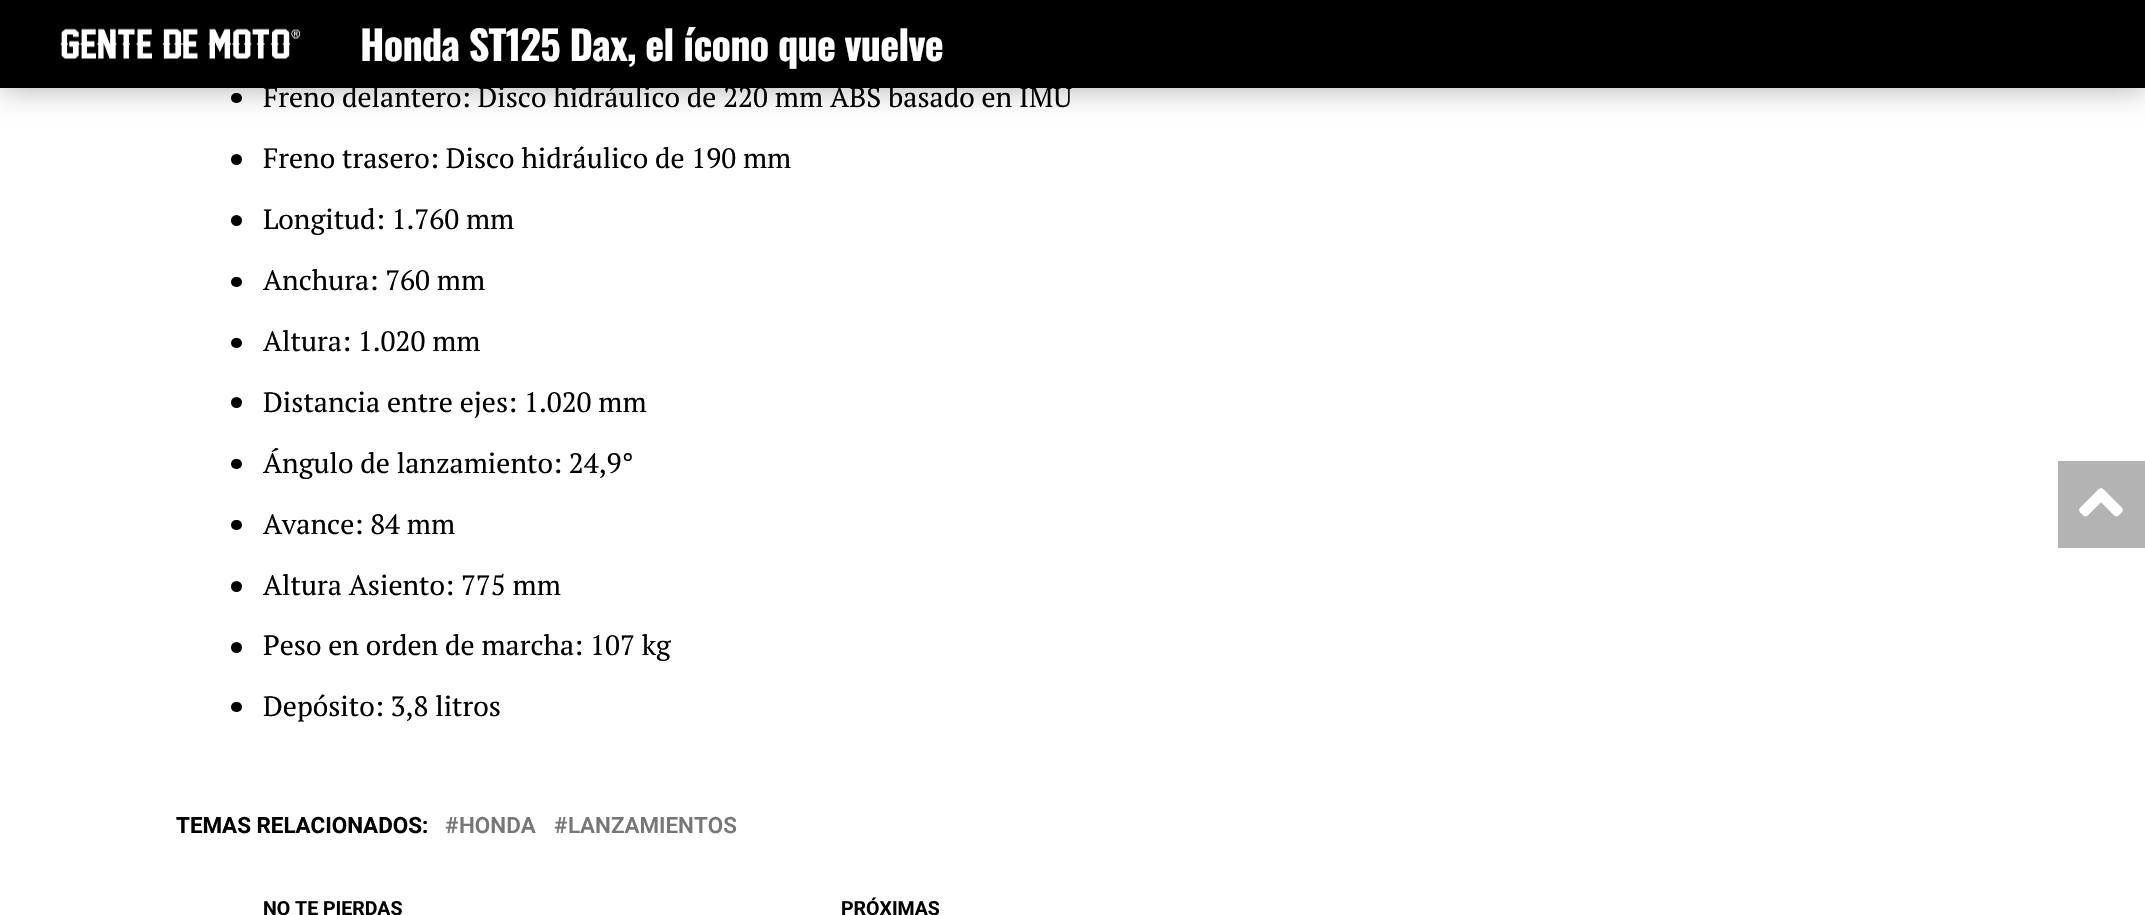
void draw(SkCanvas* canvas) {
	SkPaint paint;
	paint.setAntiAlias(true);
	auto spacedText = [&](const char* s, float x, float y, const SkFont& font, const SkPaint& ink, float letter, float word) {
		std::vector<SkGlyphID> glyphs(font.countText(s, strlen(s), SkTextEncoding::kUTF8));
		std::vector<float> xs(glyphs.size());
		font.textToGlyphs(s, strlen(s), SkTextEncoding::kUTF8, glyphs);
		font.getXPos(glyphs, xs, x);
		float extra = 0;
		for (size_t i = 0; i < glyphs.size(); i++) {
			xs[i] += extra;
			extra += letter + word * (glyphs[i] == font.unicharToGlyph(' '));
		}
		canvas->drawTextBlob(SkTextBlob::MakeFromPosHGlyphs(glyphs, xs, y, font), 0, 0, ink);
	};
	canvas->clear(0xffffffff);
	paint.setColor(0xff000000);
	canvas->drawRoundRect(SkRect::MakeXYWH(231, 93, 11, 10), 5, 5, paint);
	paint.setColor(0x4d000000);
	paint.setMaskFilter(SkMaskFilter::MakeBlur(kNormal_SkBlurStyle, 14));
	canvas->drawRect(SkRect::MakeXYWH(0, 2, 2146, 87), paint);
	paint.setMaskFilter(nullptr);
	paint.setColor(0xff000000);
	canvas->drawRect(SkRect::MakeXYWH(0, 0, 2145, 88), paint);
	canvas->drawImageRect(SkImages::DeferredFromEncodedData(SkData::MakeFromFileName("img1.png")), SkRect::MakeXYWH(60, 28, 240, 32), SkSamplingOptions());
	SkFont f1(fontMgr->matchFamilyStyle("Oswald", SkFontStyle::Bold()), 40.25);
	f1.setSubpixel(true);
	paint.setColor(0xffffffff);
	spacedText("Honda ST125 Dax, el ícono que vuelve", 360, 61, f1, paint, -0.8, 0);
	SkFont f2(fontMgr->matchFamilyStyle("PT Serif", SkFontStyle::Normal()), 28);
	f2.setSubpixel(true);
	paint.setColor(0xff000000);
	canvas->drawString("Freno delantero: Disco hidráulico de 220 mm ABS basado en IMU", 263, 107, f2, paint);
	canvas->drawCircle(236.5, 159.5, 5.5, paint);
	canvas->drawString("Freno trasero: Disco hidráulico de 190 mm", 263, 168, f2, paint);
	canvas->drawCircle(236.5, 220.5, 5.5, paint);
	canvas->drawString("Longitud: 1.760 mm", 263, 229, f2, paint);
	canvas->drawRoundRect(SkRect::MakeXYWH(231, 277, 11, 10), 5, 5, paint);
	canvas->drawString("Anchura: 760 mm", 263, 290, f2, paint);
	canvas->drawRoundRect(SkRect::MakeXYWH(231, 338, 11, 10), 5, 5, paint);
	canvas->drawString("Altura: 1.020 mm", 263, 351, f2, paint);
	canvas->drawCircle(236.5, 402.5, 5.5, paint);
	canvas->drawString("Distancia entre ejes: 1.020 mm", 263, 412, f2, paint);
	canvas->drawRoundRect(SkRect::MakeXYWH(231, 459, 11, 10), 5, 5, paint);
	canvas->drawString("Ángulo de lanzamiento: 24,9°", 263, 473, f2, paint);
	canvas->drawRoundRect(SkRect::MakeXYWH(231, 520, 11, 10), 5, 5, paint);
	canvas->drawString("Avance: 84 mm", 263, 534, f2, paint);
	canvas->drawCircle(236.5, 586.5, 5.5, paint);
	canvas->drawString("Altura Asiento: 775 mm", 263, 595, f2, paint);
	canvas->drawCircle(236.5, 647.5, 5.5, paint);
	canvas->drawString("Peso en orden de marcha: 107 kg", 263, 655, f2, paint);
	canvas->drawRoundRect(SkRect::MakeXYWH(231, 702, 11, 10), 5, 5, paint);
	canvas->drawString("Depósito: 3,8 litros", 263, 716, f2, paint);
	SkFont f3(fontMgr->matchFamilyStyle("Roboto", SkFontStyle::Bold()), 22.4);
	f3.setSubpixel(true);
	canvas->drawString("TEMAS RELACIONADOS:", 176, 833, f3, paint);
	SkFont f4(fontMgr->matchFamilyStyle("Roboto", SkFontStyle(600, SkFontStyle::kNormal_Width, SkFontStyle::kUpright_Slant)), 22.4);
	f4.setSubpixel(true);
	paint.setColor(0xff777777);
	canvas->drawString("#", 445, 833, f4, paint);
	canvas->drawString("HONDA", 459, 833, f4, paint);
	canvas->drawString("#", 554, 833, f4, paint);
	canvas->drawString("LANZAMIENTOS", 568, 833, f4, paint);
	SkFont f5(fontMgr->matchFamilyStyle("Roboto", SkFontStyle::Bold()), 19.5);
	f5.setSubpixel(true);
	paint.setColor(0xff000000);
	canvas->drawString("NO TE PIERDAS", 263, 915, f5, paint);
	canvas->drawString("PRÓXIMAS", 841, 915, f5, paint);
	paint.setColor(0xffb3b3b3);
	canvas->drawRect(SkRect::MakeXYWH(2058, 461, 87, 87), paint);
	canvas->drawImageRect(SkImages::DeferredFromEncodedData(SkData::MakeFromFileName("img2.png")), SkRect::MakeXYWH(2079, 488, 44, 29), SkSamplingOptions());
}
